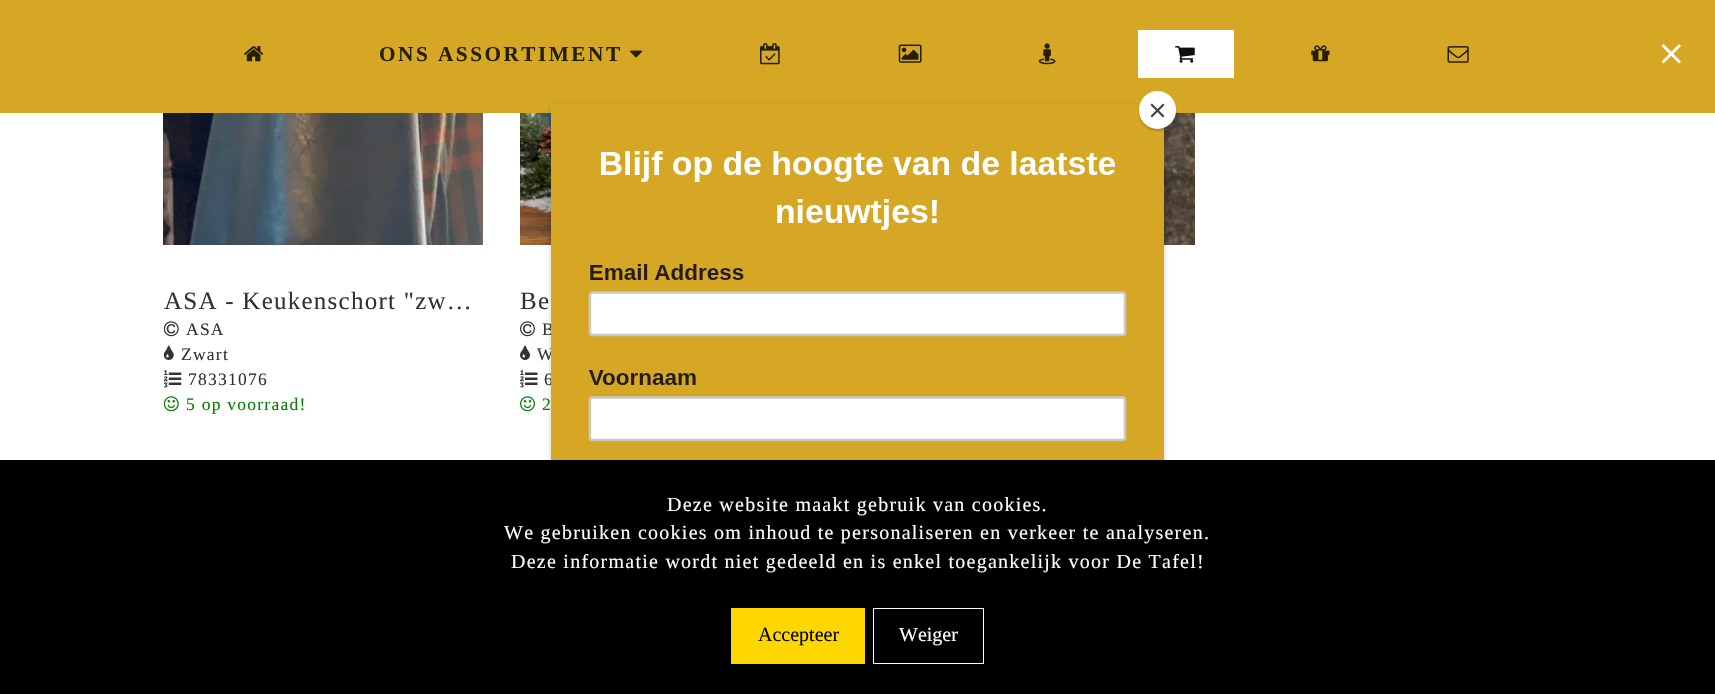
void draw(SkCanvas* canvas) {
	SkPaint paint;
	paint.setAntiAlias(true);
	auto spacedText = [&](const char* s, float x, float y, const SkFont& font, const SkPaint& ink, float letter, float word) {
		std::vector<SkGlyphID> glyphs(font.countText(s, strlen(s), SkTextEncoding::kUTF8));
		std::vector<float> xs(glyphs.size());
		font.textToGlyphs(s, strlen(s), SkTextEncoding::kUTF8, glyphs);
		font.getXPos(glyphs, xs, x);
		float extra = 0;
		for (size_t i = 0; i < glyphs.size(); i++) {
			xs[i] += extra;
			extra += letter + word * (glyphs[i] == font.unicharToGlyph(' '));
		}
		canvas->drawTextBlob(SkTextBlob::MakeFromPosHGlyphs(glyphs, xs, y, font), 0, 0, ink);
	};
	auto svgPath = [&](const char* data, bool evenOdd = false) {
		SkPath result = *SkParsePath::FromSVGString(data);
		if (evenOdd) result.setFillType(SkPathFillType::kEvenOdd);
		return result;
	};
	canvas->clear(0xffffffff);
	paint.setColor(0xffd6a725);
	canvas->drawRect(SkRect::MakeXYWH(0, 0, 1715, 113), paint);
	canvas->drawImageRect(SkImages::DeferredFromEncodedData(SkData::MakeFromFileName("img1.png")), SkRect::MakeXYWH(244, 46, 20, 16), SkSamplingOptions());
	SkFont f1(fontMgr->matchFamilyStyle("Liberation Serif", SkFontStyle::Bold()), 21.25);
	f1.setSubpixel(true);
	paint.setColor(0xff252003);
	spacedText("ONS ASSORTIMENT", 379, 61, f1, paint, 2.5, 0);
	canvas->drawImageRect(SkImages::DeferredFromEncodedData(SkData::MakeFromFileName("img2.png")), SkRect::MakeXYWH(630, 50, 13, 8), SkSamplingOptions());
	canvas->drawImageRect(SkImages::DeferredFromEncodedData(SkData::MakeFromFileName("img3.png")), SkRect::MakeXYWH(760, 43, 20, 22), SkSamplingOptions());
	canvas->drawImageRect(SkImages::DeferredFromEncodedData(SkData::MakeFromFileName("img4.png")), SkRect::MakeXYWH(898, 44, 24, 19), SkSamplingOptions());
	canvas->drawImageRect(SkImages::DeferredFromEncodedData(SkData::MakeFromFileName("img5.png")), SkRect::MakeXYWH(1038, 43, 18, 22), SkSamplingOptions());
	paint.setColor(0xffffffff);
	canvas->drawRect(SkRect::MakeXYWH(1138, 30, 96, 48), paint);
	canvas->drawImageRect(SkImages::DeferredFromEncodedData(SkData::MakeFromFileName("img6.png")), SkRect::MakeXYWH(1175, 46, 20, 17), SkSamplingOptions());
	canvas->drawImageRect(SkImages::DeferredFromEncodedData(SkData::MakeFromFileName("img7.png")), SkRect::MakeXYWH(1311, 45, 19, 17), SkSamplingOptions());
	canvas->drawImageRect(SkImages::DeferredFromEncodedData(SkData::MakeFromFileName("img8.png")), SkRect::MakeXYWH(1447, 46, 22, 17), SkSamplingOptions());
	canvas->drawPath(svgPath("M1663.5 44L1681 61.5L1679 63.5L1661.5 46Z"), paint);
	canvas->drawPath(svgPath("M1661.5 61.5L1679 44L1681 46L1663.5 63.5Z"), paint);
	canvas->drawImageRect(SkImages::DeferredFromEncodedData(SkData::MakeFromFileName("img9.png")), SkRect::MakeXYWH(1164, 113, 31, 132), SkSamplingOptions());
	canvas->drawImageRect(SkImages::DeferredFromEncodedData(SkData::MakeFromFileName("img10.png")), SkRect::MakeXYWH(163, 113, 320, 132), SkSamplingOptions());
	SkFont f2(fontMgr->matchFamilyStyle("Liberation Serif", SkFontStyle::Normal()), 25);
	f2.setSubpixel(true);
	paint.setColor(0xff333333);
	spacedText("ASA - Keukenschort \"zw…", 164, 309, f2, paint, 1.25, 0);
	canvas->drawImageRect(SkImages::DeferredFromEncodedData(SkData::MakeFromFileName("img11.png")), SkRect::MakeXYWH(164, 321, 15, 16), SkSamplingOptions());
	SkFont f3(fontMgr->matchFamilyStyle("Liberation Serif", SkFontStyle::Normal()), 17.5);
	f3.setSubpixel(true);
	spacedText("ASA", 186, 335, f3, paint, 1.25, 0);
	canvas->drawImageRect(SkImages::DeferredFromEncodedData(SkData::MakeFromFileName("img12.png")), SkRect::MakeXYWH(164, 345, 10, 15), SkSamplingOptions());
	spacedText("Zwart", 181, 360, f3, paint, 1.25, 0);
	canvas->drawImageRect(SkImages::DeferredFromEncodedData(SkData::MakeFromFileName("img13.png")), SkRect::MakeXYWH(164, 370, 18, 18), SkSamplingOptions());
	spacedText("78331076", 188, 385, f3, paint, 1.25, 0);
	canvas->drawImageRect(SkImages::DeferredFromEncodedData(SkData::MakeFromFileName("img14.png")), SkRect::MakeXYWH(164, 396, 15, 16), SkSamplingOptions());
	paint.setColor(0xff008000);
	spacedText("5 op voorraad!", 186, 410, f3, paint, 1.25, 0);
	canvas->drawImageRect(SkImages::DeferredFromEncodedData(SkData::MakeFromFileName("img15.png")), SkRect::MakeXYWH(520, 113, 31, 132), SkSamplingOptions());
	paint.setColor(0xff333333);
	spacedText("Be", 520, 309, f2, paint, 1.25, 0);
	canvas->drawImageRect(SkImages::DeferredFromEncodedData(SkData::MakeFromFileName("img16.png")), SkRect::MakeXYWH(520, 321, 15, 16), SkSamplingOptions());
	spacedText("B", 542, 335, f3, paint, 1.25, 0);
	canvas->drawImageRect(SkImages::DeferredFromEncodedData(SkData::MakeFromFileName("img17.png")), SkRect::MakeXYWH(520, 345, 10, 15), SkSamplingOptions());
	spacedText("W", 537, 360, f3, paint, 1.25, 0);
	canvas->drawImageRect(SkImages::DeferredFromEncodedData(SkData::MakeFromFileName("img18.png")), SkRect::MakeXYWH(520, 370, 18, 18), SkSamplingOptions());
	spacedText("6", 544, 385, f3, paint, 1.25, 0);
	canvas->drawImageRect(SkImages::DeferredFromEncodedData(SkData::MakeFromFileName("img19.png")), SkRect::MakeXYWH(520, 396, 15, 16), SkSamplingOptions());
	paint.setColor(0xff008000);
	spacedText("2", 542, 410, f3, paint, 1.25, 0);
	canvas->save();
	canvas->clipPath(svgPath("M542 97H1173V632H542ZM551 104H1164V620H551Z", true), true);
	paint.setColor(0x33000000);
	paint.setMaskFilter(SkMaskFilter::MakeBlur(kNormal_SkBlurStyle, 2.5));
	canvas->drawRect(SkRect::MakeXYWH(551, 106, 613, 517), paint);
	paint.setMaskFilter(nullptr);
	canvas->restore();
	canvas->drawImageRect(SkImages::DeferredFromEncodedData(SkData::MakeFromFileName("img20.png")), SkRect::MakeXYWH(551, 107, 613, 353), SkSamplingOptions());
	paint.setMaskFilter(SkMaskFilter::MakeBlur(kNormal_SkBlurStyle, 1));
	canvas->drawRoundRect(SkRect::MakeXYWH(1139, 94, 37, 37), 18.5, 18.5, paint);
	paint.setMaskFilter(nullptr);
	paint.setColor(0xffffffff);
	canvas->drawRoundRect(SkRect::MakeXYWH(1139, 91, 37, 38), 18.5, 18.5, paint);
	paint.setColor(0xff414141);
	canvas->drawPath(svgPath("M1163 103.5L1164.5 105L1152 117.5L1150.5 116Z"), paint);
	canvas->drawPath(svgPath("M1150.5 105L1152 103.5L1164.5 116L1163 117.5Z"), paint);
	paint.setColor(0xff000000);
	canvas->drawRect(SkRect::MakeXYWH(0, 460, 1715, 234), paint);
	SkFont f4(fontMgr->matchFamilyStyle("Liberation Serif", SkFontStyle::Normal()), 20);
	f4.setSubpixel(true);
	paint.setColor(0xffffffff);
	spacedText("Deze website maakt gebruik van cookies.", 667, 511, f4, paint, 1.25, 0);
	spacedText("We gebruiken cookies om inhoud te personaliseren en verkeer te analyseren.", 504, 539, f4, paint, 1.25, 0);
	spacedText("Deze informatie wordt niet gedeeld en is enkel toegankelijk voor De Tafel!", 511, 568, f4, paint, 1.25, 0);
	paint.setColor(0xffffd700);
	canvas->drawRect(SkRect::MakeXYWH(731, 608, 134, 56), paint);
	paint.setColor(0xff000000);
	canvas->drawString("Accepteer", 758, 641, f4, paint);
	paint.setStroke(true);
	paint.setStrokeWidth(1);
	paint.setColor(0xffffffff);
	canvas->drawRect(SkRect::MakeXYWH(873.5, 608.5, 110, 55), paint);
	paint.setStroke(false);
	canvas->drawString("Weiger", 899, 641, f4, paint);
}
